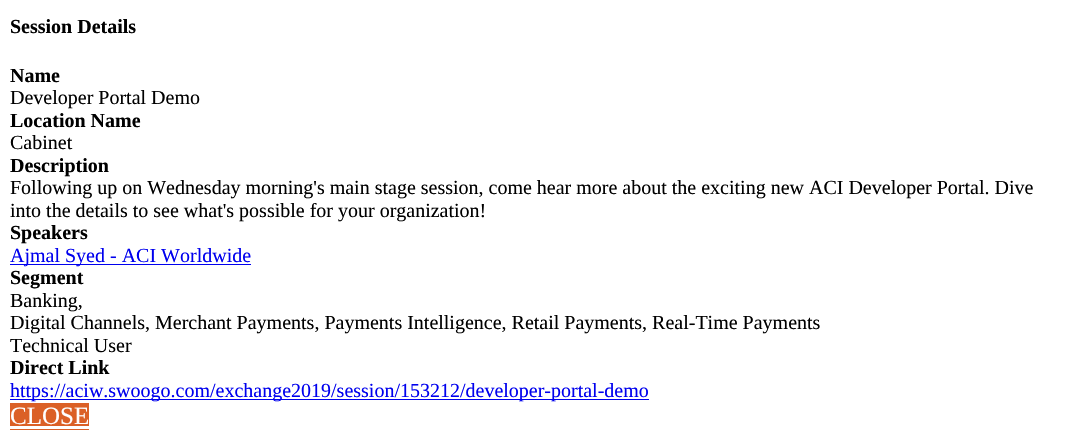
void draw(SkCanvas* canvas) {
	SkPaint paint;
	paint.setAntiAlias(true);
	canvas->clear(0xffffffff);
	SkFont f1(fontMgr->matchFamilyStyle("Liberation Serif", SkFontStyle::Bold()), 20);
	f1.setSubpixel(true);
	paint.setColor(0xff000000);
	canvas->drawString("Session Details", 10, 33, f1, paint);
	canvas->drawString("Name", 10, 82, f1, paint);
	SkFont f2(fontMgr->matchFamilyStyle("Liberation Serif", SkFontStyle::Normal()), 20);
	f2.setSubpixel(true);
	canvas->drawString("Developer Portal Demo", 10, 104, f2, paint);
	canvas->drawString("Location Name", 10, 127, f1, paint);
	canvas->drawString("Cabinet", 10, 149, f2, paint);
	canvas->drawString("Description", 10, 172, f1, paint);
	canvas->drawString("Following up on Wednesday morning's main stage session, come hear more about the exciting new ACI Developer Portal. Dive", 10, 194, f2, paint);
	canvas->drawString("into the details to see what's possible for your organization!", 10, 217, f2, paint);
	canvas->drawString("Speakers", 10, 239, f1, paint);
	paint.setColor(0xff0000ee);
	canvas->drawRect(SkRect::MakeXYWH(10, 264, 241, 1), paint);
	canvas->drawString("Ajmal Syed - ACI Worldwide", 10, 262, f2, paint);
	paint.setColor(0xff000000);
	canvas->drawString("Segment", 10, 284, f1, paint);
	canvas->drawString("Banking,", 10, 307, f2, paint);
	canvas->drawString("Digital Channels, Merchant Payments, Payments Intelligence, Retail Payments, Real-Time Payments", 10, 329, f2, paint);
	canvas->drawString("Technical User", 10, 352, f2, paint);
	canvas->drawString("Direct Link", 10, 374, f1, paint);
	paint.setColor(0xff0000ee);
	canvas->drawRect(SkRect::MakeXYWH(10, 399, 639, 1), paint);
	canvas->drawString("https://aciw.swoogo.com/exchange2019/session/153212/developer-portal-demo", 10, 397, f2, paint);
	paint.setColor(0xffdb6026);
	canvas->drawRect(SkRect::MakeXYWH(10, 403, 79, 27), paint);
	SkFont f3(fontMgr->matchFamilyStyle("Liberation Serif", SkFontStyle::Normal()), 25);
	f3.setSubpixel(true);
	paint.setColor(0xffffffff);
	canvas->drawString("CLOSE", 10, 424, f3, paint);
	canvas->drawRect(SkRect::MakeXYWH(10, 426, 79, 3), paint);
}
